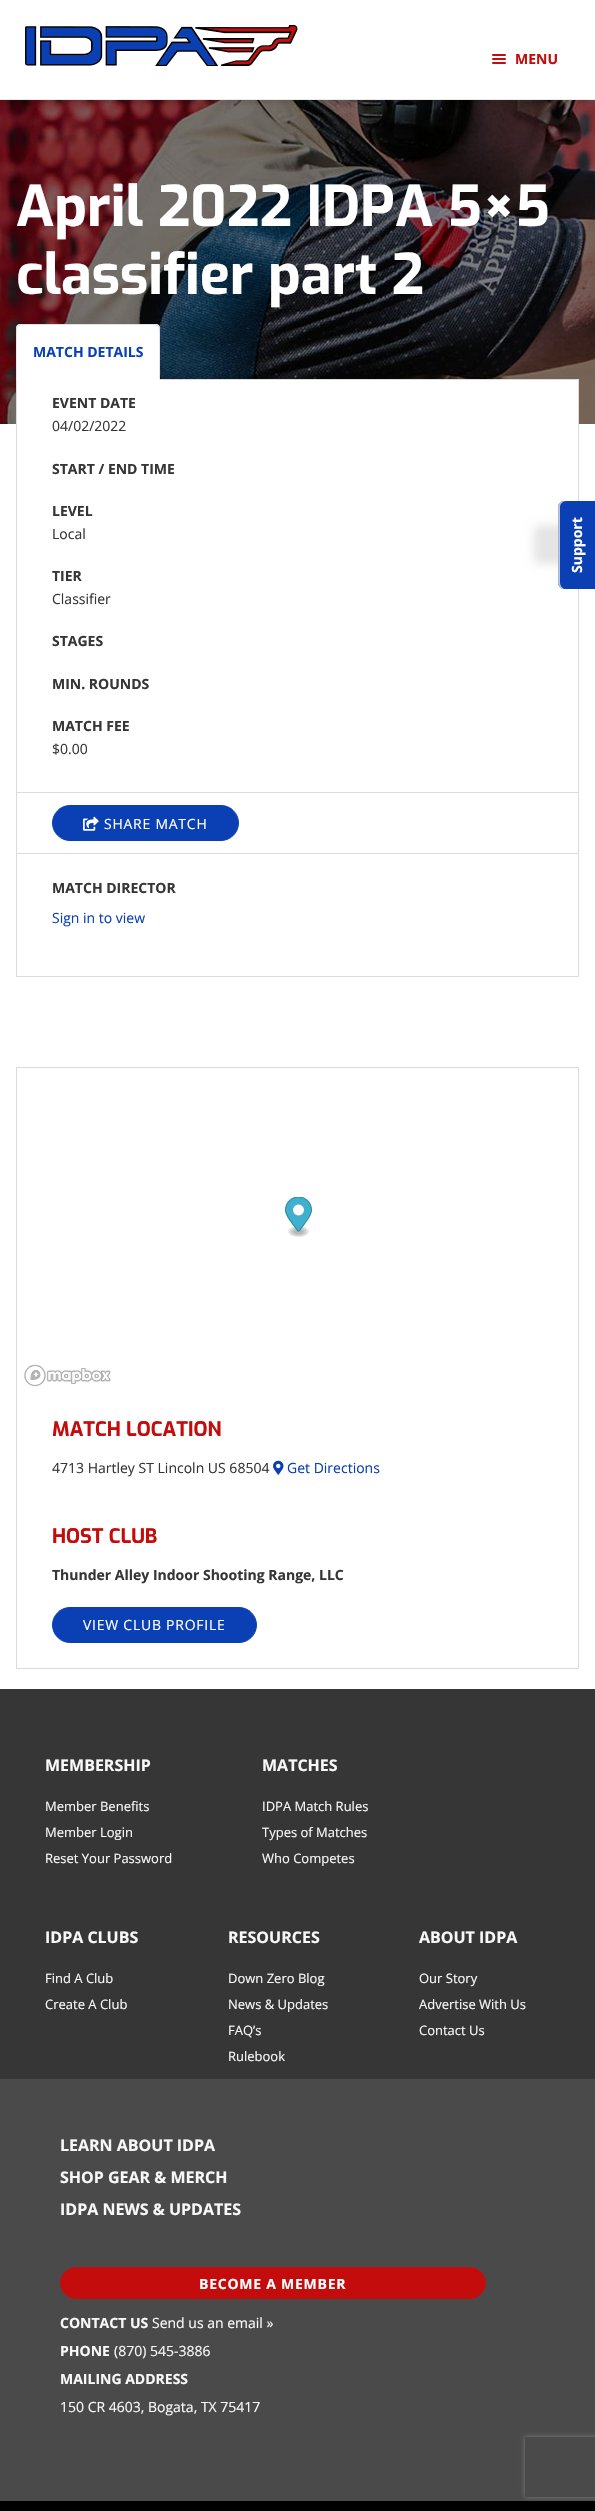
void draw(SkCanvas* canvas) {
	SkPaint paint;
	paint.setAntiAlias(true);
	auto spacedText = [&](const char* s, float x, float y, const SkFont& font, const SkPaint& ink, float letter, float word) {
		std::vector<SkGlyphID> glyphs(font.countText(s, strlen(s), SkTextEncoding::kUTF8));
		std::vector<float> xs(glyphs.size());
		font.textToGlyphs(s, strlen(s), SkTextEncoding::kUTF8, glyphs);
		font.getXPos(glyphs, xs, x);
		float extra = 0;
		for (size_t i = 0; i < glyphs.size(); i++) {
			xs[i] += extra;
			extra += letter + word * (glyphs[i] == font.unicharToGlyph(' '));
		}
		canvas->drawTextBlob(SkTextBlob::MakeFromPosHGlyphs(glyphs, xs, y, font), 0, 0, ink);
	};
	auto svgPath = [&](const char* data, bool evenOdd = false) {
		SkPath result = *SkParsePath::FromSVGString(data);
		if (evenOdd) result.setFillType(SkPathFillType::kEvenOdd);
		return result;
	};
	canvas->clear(0xffffffff);
	canvas->drawImageRect(SkImages::DeferredFromEncodedData(SkData::MakeFromFileName("img2.png")), SkRect::MakeXYWH(0, 100, 595, 324), SkSamplingOptions());
	paint.setColor(0x26000000);
	paint.setMaskFilter(SkMaskFilter::MakeBlur(kNormal_SkBlurStyle, 3));
	canvas->drawRect(SkRect::MakeXYWH(0, 2, 595, 100), paint);
	paint.setMaskFilter(nullptr);
	paint.setColor(0xffffffff);
	canvas->drawRect(SkRect::MakeXYWH(0, 0, 595, 99), paint);
	canvas->drawImageRect(SkImages::DeferredFromEncodedData(SkData::MakeFromFileName("img1.png")), SkRect::MakeXYWH(25, 25, 273, 41), SkSamplingOptions());
	paint.setColor(0xffeaeaea);
	canvas->drawRect(SkRect::MakeXYWH(0, 99, 595, 1), paint);
	paint.setColor(0xffc40c0c);
	canvas->drawRoundRect(SkRect::MakeXYWH(492, 54, 14, 2), 1, 1, paint);
	canvas->drawRoundRect(SkRect::MakeXYWH(492, 58, 14, 2), 1, 1, paint);
	SkFont f1(fontMgr->matchFamilyStyle("Open Sans", SkFontStyle::Bold()), 14);
	f1.setSubpixel(true);
	canvas->drawString("MENU", 515, 64, f1, paint);
	canvas->drawRoundRect(SkRect::MakeXYWH(492, 62, 14, 2), 1, 1, paint);
	SkFont f2(fontMgr->matchFamilyStyle("Exo", SkFontStyle::Bold()), 56);
	f2.setSubpixel(true);
	paint.setColor(0xffffffff);
	canvas->drawString("April 2022 IDPA 5×5", 16, 226, f2, paint);
	canvas->drawString("classifier part 2", 16, 294, f2, paint);
	paint.setStroke(true);
	paint.setStrokeWidth(1);
	paint.setColor(0xffdbdbdb);
	canvas->drawRect(SkRect::MakeXYWH(16.5, 379.5, 562, 597), paint);
	paint.setStroke(false);
	paint.setColor(0xffffffff);
	canvas->drawPath(svgPath("M20 324H156C158 324 160 326 160 328V380H16V328C16 326 18 324 20 324Z"), paint);
	paint.setColor(0xffdee2e6);
	canvas->drawPath(svgPath("M20 324L17 325L18 326L20 325H156L158 326L159 325L156 324Z"), paint);
	canvas->drawPath(svgPath("M160 380V328L159 325L158 326C160 328 159 373 159 379Z"), paint);
	paint.setColor(0xffffffff);
	canvas->drawPath(svgPath("M160 380L159 379H17L16 380Z"), paint);
	paint.setColor(0xffdee2e6);
	canvas->drawPath(svgPath("M16 380L17 379C17 373 16 328 18 326L17 325L16 328Z"), paint);
	paint.setColor(0xff0b40b5);
	canvas->drawString("MATCH DETAILS", 33, 357, f1, paint);
	paint.setColor(0xffffffff);
	canvas->drawRect(SkRect::MakeXYWH(17, 380, 561, 44), paint);
	paint.setColor(0xffdbdbdb);
	canvas->drawRect(SkRect::MakeXYWH(17, 792, 561, 1), paint);
	paint.setColor(0xff363636);
	canvas->drawString("EVENT DATE", 52, 408, f1, paint);
	SkFont f3(fontMgr->matchFamilyStyle("Open Sans", SkFontStyle::Normal()), 14);
	f3.setSubpixel(true);
	canvas->drawString("04/02/2022", 52, 431, f3, paint);
	canvas->drawString("START / END TIME", 52, 474, f1, paint);
	canvas->drawString("LEVEL", 52, 516, f1, paint);
	canvas->drawString("Local", 52, 539, f3, paint);
	canvas->drawString("TIER", 52, 581, f1, paint);
	canvas->drawString("Classifier", 52, 604, f3, paint);
	canvas->drawString("STAGES", 52, 646, f1, paint);
	canvas->drawString("MIN. ROUNDS", 52, 689, f1, paint);
	canvas->drawString("MATCH FEE", 52, 731, f1, paint);
	canvas->drawString("$0.00", 52, 754, f3, paint);
	paint.setColor(0xffdbdbdb);
	canvas->drawRect(SkRect::MakeXYWH(17, 853, 561, 1), paint);
	paint.setColor(0xff0b40b5);
	canvas->drawRoundRect(SkRect::MakeXYWH(52.5, 805.5, 186, 35), 17.5, 17.5, paint);
	paint.setStroke(true);
	canvas->drawRoundRect(SkRect::MakeXYWH(52.5, 805.5, 186, 35), 17.5, 17.5, paint);
	canvas->drawImageRect(SkImages::DeferredFromEncodedData(SkData::MakeFromFileName("img3.png")), SkRect::MakeXYWH(83, 816, 16, 15), SkSamplingOptions());
	paint.setStroke(false);
	paint.setColor(0xffffffff);
	spacedText("SHARE MATCH", 104, 829, f3, paint, 0.75, 0);
	paint.setColor(0xff363636);
	canvas->drawString("MATCH DIRECTOR", 52, 893, f1, paint);
	paint.setColor(0xff0b40b5);
	canvas->drawString("Sign in to view", 52, 923, f3, paint);
	paint.setStroke(true);
	paint.setColor(0xffdbdbdb);
	canvas->drawRect(SkRect::MakeXYWH(16.5, 1067.5, 562, 601), paint);
	canvas->drawImageRect(SkImages::DeferredFromEncodedData(SkData::MakeFromFileName("img4.png")), SkRect::MakeXYWH(285, 1197, 27, 40), SkSamplingOptions());
	canvas->drawImageRect(SkImages::DeferredFromEncodedData(SkData::MakeFromFileName("img5.png")), SkRect::MakeXYWH(24, 1364, 87, 23), SkSamplingOptions());
	SkFont f4(fontMgr->matchFamilyStyle("Exo", SkFontStyle::Bold()), 20);
	f4.setSubpixel(true);
	paint.setStroke(false);
	paint.setColor(0xffc40c0c);
	canvas->drawString("MATCH LOCATION", 52, 1436, f4, paint);
	paint.setColor(0xff363636);
	canvas->drawString("4713 Hartley ST Lincoln US 68504", 52, 1473, f3, paint);
	canvas->drawImageRect(SkImages::DeferredFromEncodedData(SkData::MakeFromFileName("img6.png")), SkRect::MakeXYWH(273, 1460, 11, 15), SkSamplingOptions());
	paint.setColor(0xff0b40b5);
	canvas->drawString("Get Directions", 287, 1473, f3, paint);
	paint.setColor(0xffc40c0c);
	canvas->drawString("HOST CLUB", 52, 1543, f4, paint);
	paint.setColor(0xff363636);
	canvas->drawString("Thunder Alley Indoor Shooting Range, LLC", 52, 1580, f1, paint);
	paint.setColor(0xff0b40b5);
	canvas->drawRoundRect(SkRect::MakeXYWH(52.5, 1607.5, 204, 35), 17.5, 17.5, paint);
	paint.setStroke(true);
	canvas->drawRoundRect(SkRect::MakeXYWH(52.5, 1607.5, 204, 35), 17.5, 17.5, paint);
	paint.setStroke(false);
	paint.setColor(0xffffffff);
	spacedText("VIEW CLUB PROFILE", 83, 1630, f3, paint, 0.75, 0);
	paint.setColor(0x1a000000);
	paint.setMaskFilter(SkMaskFilter::MakeBlur(kNormal_SkBlurStyle, 5));
	canvas->drawRoundRect(SkRect::MakeXYWH(534, 525, 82, 39), 6, 6, paint);
	paint.setMaskFilter(nullptr);
	paint.setColor(0xff0b40b5);
	canvas->drawPath(svgPath("M558 583V507C558 504 561 501 564 501H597V589H564C561 589 558 586 558 583Z"), paint);
	paint.setColor(0xb3ffffff);
	canvas->drawPath(svgPath("M560 583V507C560 504 563 501 566 501H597H564C561 501 558 504 558 507V583C558 586 561 589 564 589C562 588 560 585 560 583Z"), paint);
	paint.setColor(0x14000000);
	canvas->drawPath(svgPath("M559 583V507C559 504 562 501 565 501H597H564C561 501 558 504 558 507V583C558 585 560 588 563 588C561 587 559 585 559 583Z"), paint);
	paint.setColor(0xffffffff);
	canvas->save();
	canvas->rotate(-90, 582, 573);
	canvas->drawString("Support", 582, 573, f1, paint);
	canvas->restore();
	paint.setColor(0xff000000);
	canvas->drawRect(SkRect::MakeXYWH(0, 2501, 595, 10), paint);
	paint.setColor(0xff363636);
	canvas->drawRect(SkRect::MakeXYWH(0, 1689, 595, 390), paint);
	SkFont f5(fontMgr->matchFamilyStyle("Open Sans", SkFontStyle::Bold()), 16);
	f5.setSubpixel(true);
	paint.setColor(0xfff8f8f8);
	canvas->drawString("MEMBERSHIP", 45, 1771, f5, paint);
	SkFont f6(fontMgr->matchFamilyStyle("Open Sans", SkFontStyle::Normal()), 13);
	f6.setSubpixel(true);
	canvas->drawString("Member Benefits", 45, 1811, f6, paint);
	canvas->drawString("Member Login", 45, 1837, f6, paint);
	canvas->drawString("Reset Your Password", 45, 1863, f6, paint);
	canvas->drawString("MATCHES", 262, 1771, f5, paint);
	canvas->drawString("IDPA Match Rules", 262, 1811, f6, paint);
	canvas->drawString("Types of Matches", 262, 1837, f6, paint);
	canvas->drawString("Who Competes", 262, 1863, f6, paint);
	canvas->drawString("IDPA CLUBS", 45, 1943, f5, paint);
	canvas->drawString("Find A Club", 45, 1983, f6, paint);
	canvas->drawString("Create A Club", 45, 2009, f6, paint);
	canvas->drawString("RESOURCES", 228, 1943, f5, paint);
	canvas->drawString("Down Zero Blog", 228, 1983, f6, paint);
	canvas->drawString("News & Updates", 228, 2009, f6, paint);
	canvas->drawString("FAQ’s", 228, 2035, f6, paint);
	canvas->drawString("Rulebook", 228, 2061, f6, paint);
	canvas->drawString("ABOUT IDPA", 419, 1943, f5, paint);
	canvas->drawString("Our Story", 419, 1983, f6, paint);
	canvas->drawString("Advertise With Us", 419, 2009, f6, paint);
	canvas->drawString("Contact Us", 419, 2035, f6, paint);
	paint.setColor(0xff4a4a4a);
	canvas->drawRect(SkRect::MakeXYWH(0, 2079, 595, 422), paint);
	paint.setColor(0xfff8f8f8);
	canvas->drawString("LEARN ABOUT IDPA", 60, 2151, f5, paint);
	canvas->drawString("SHOP GEAR & MERCH", 60, 2183, f5, paint);
	canvas->drawString("IDPA NEWS & UPDATES", 60, 2215, f5, paint);
	paint.setColor(0xffc40c0c);
	canvas->drawRoundRect(SkRect::MakeXYWH(60.5, 2267.5, 425, 31), 15.5, 15.5, paint);
	paint.setStroke(true);
	canvas->drawRoundRect(SkRect::MakeXYWH(60.5, 2267.5, 425, 31), 15.5, 15.5, paint);
	paint.setStroke(false);
	paint.setColor(0xffffffff);
	spacedText("BECOME A MEMBER", 199, 2289, f1, paint, 0.75, 0);
	paint.setColor(0xfff8f8f8);
	canvas->drawString("CONTACT US", 60, 2328, f1, paint);
	canvas->drawString("Send us an email »", 152, 2328, f3, paint);
	canvas->drawString("PHONE", 60, 2356, f1, paint);
	canvas->drawString("(870) 545-3886", 114, 2356, f3, paint);
	canvas->drawString("MAILING ADDRESS", 60, 2384, f1, paint);
	canvas->drawString("150 CR 4603, Bogata, TX 75417", 60, 2412, f3, paint);
	canvas->save();
	canvas->clipPath(svgPath("M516 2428H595V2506H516ZM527 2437H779C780 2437 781 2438 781 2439V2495C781 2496 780 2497 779 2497H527C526 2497 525 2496 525 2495V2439C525 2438 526 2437 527 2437Z", true), true);
	paint.setColor(0xff808080);
	paint.setMaskFilter(SkMaskFilter::MakeBlur(kNormal_SkBlurStyle, 2.5));
	canvas->drawRoundRect(SkRect::MakeXYWH(525, 2437, 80, 60), 2, 2, paint);
	paint.setMaskFilter(nullptr);
	canvas->restore();
}
